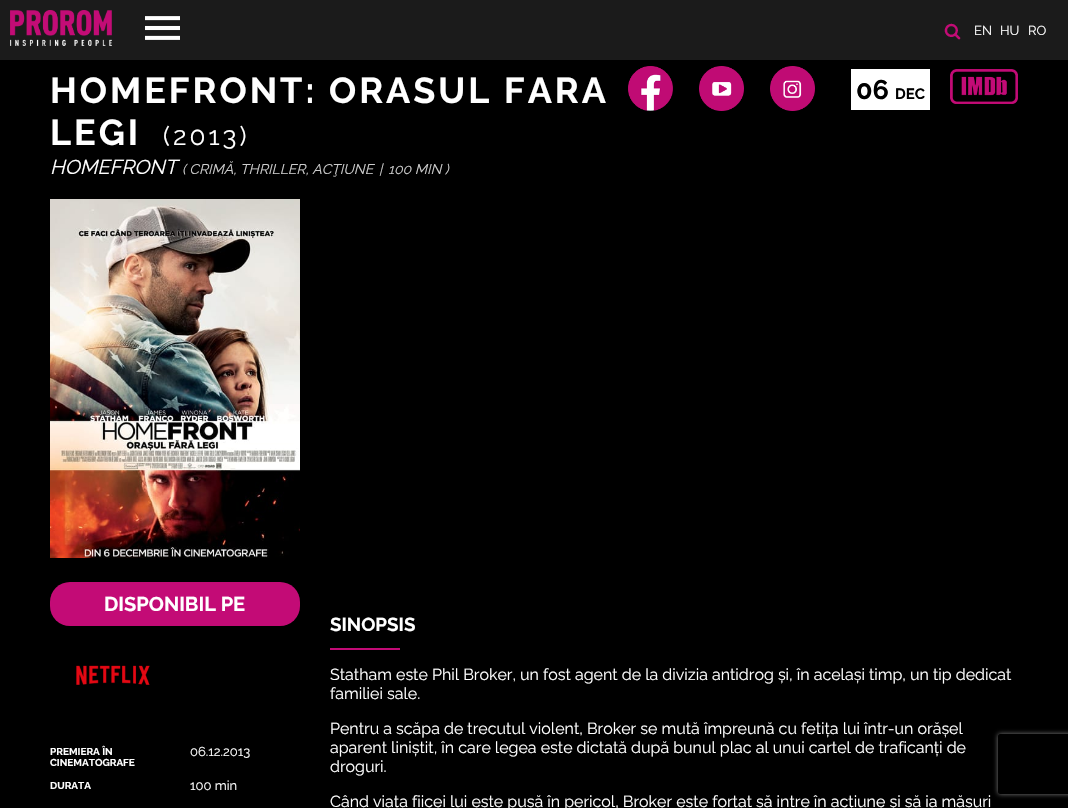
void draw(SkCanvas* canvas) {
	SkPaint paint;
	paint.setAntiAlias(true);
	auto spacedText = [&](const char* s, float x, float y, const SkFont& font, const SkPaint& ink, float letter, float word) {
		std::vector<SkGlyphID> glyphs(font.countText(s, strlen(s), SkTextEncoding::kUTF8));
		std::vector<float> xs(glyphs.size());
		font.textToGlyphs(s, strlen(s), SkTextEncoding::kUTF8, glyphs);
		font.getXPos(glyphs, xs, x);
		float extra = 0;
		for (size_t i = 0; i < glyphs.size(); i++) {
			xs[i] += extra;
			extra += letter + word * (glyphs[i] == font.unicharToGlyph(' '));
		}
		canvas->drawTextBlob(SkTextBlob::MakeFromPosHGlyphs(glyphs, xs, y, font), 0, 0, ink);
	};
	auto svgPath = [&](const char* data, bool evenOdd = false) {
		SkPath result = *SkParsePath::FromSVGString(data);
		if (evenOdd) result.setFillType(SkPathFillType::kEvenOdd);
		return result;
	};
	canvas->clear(0xff000000);
	paint.setColor(0xff1b1b1b);
	canvas->drawRect(SkRect::MakeXYWH(0, 0, 1068, 60), paint);
	canvas->drawImageRect(SkImages::DeferredFromEncodedData(SkData::MakeFromFileName("img1.png")), SkRect::MakeXYWH(10, 10, 102, 36), SkSamplingOptions());
	canvas->drawImageRect(SkImages::DeferredFromEncodedData(SkData::MakeFromFileName("img2.png")), SkRect::MakeXYWH(145, 16, 35, 24), SkSamplingOptions());
	canvas->drawImageRect(SkImages::DeferredFromEncodedData(SkData::MakeFromFileName("img3.png")), SkRect::MakeXYWH(944, 23, 17, 17), SkSamplingOptions());
	SkFont f1(fontMgr->matchFamilyStyle("Raleway", SkFontStyle::Normal()), 13);
	f1.setSubpixel(true);
	paint.setColor(0xffffffff);
	canvas->drawString("EN", 974, 35, f1, paint);
	canvas->drawString("HU", 1000, 35, f1, paint);
	canvas->drawString("RO", 1028, 35, f1, paint);
	SkFont f2(fontMgr->matchFamilyStyle("Raleway", SkFontStyle::Bold()), 36);
	f2.setSubpixel(true);
	spacedText("HOMEFRONT: ORASUL FARA", 50, 103, f2, paint, 3, 0);
	spacedText("LEGI", 50, 145, f2, paint, 3, 0);
	SkFont f3(fontMgr->matchFamilyStyle("Raleway", SkFontStyle::Normal()), 26);
	f3.setSubpixel(true);
	spacedText("(2013)", 163, 145, f3, paint, 3, 0);
	SkFont f4(fontMgr->matchFamilyStyle("Raleway", SkFontStyle::Italic()), 20);
	f4.setSubpixel(true);
	canvas->drawString("HOMEFRONT", 50, 174, f4, paint);
	SkFont f5(fontMgr->matchFamilyStyle("Raleway", SkFontStyle::Italic()), 14);
	f5.setSubpixel(true);
	paint.setColor(0xffcccccc);
	canvas->drawString("( CRIMĂ, THRILLER, ACŢIUNE", 182, 174, f5, paint);
	canvas->drawString("|", 379, 174, f5, paint);
	canvas->drawString("100 MIN )", 388, 174, f5, paint);
	canvas->drawImageRect(SkImages::DeferredFromEncodedData(SkData::MakeFromFileName("img4.png")), SkRect::MakeXYWH(628, 66, 45, 45), SkSamplingOptions());
	canvas->drawImageRect(SkImages::DeferredFromEncodedData(SkData::MakeFromFileName("img5.png")), SkRect::MakeXYWH(699, 66, 45, 45), SkSamplingOptions());
	canvas->drawImageRect(SkImages::DeferredFromEncodedData(SkData::MakeFromFileName("img6.png")), SkRect::MakeXYWH(770, 66, 45, 45), SkSamplingOptions());
	paint.setColor(0xffffffff);
	canvas->drawRect(SkRect::MakeXYWH(851, 69, 79, 41), paint);
	SkFont f6(fontMgr->matchFamilyStyle("Raleway", SkFontStyle::Bold()), 27);
	f6.setSubpixel(true);
	paint.setColor(0xff000000);
	canvas->drawString("06", 856, 99, f6, paint);
	SkFont f7(fontMgr->matchFamilyStyle("Raleway", SkFontStyle::Bold()), 15);
	f7.setSubpixel(true);
	canvas->drawString("DEC", 895, 99, f7, paint);
	canvas->drawImageRect(SkImages::DeferredFromEncodedData(SkData::MakeFromFileName("img7.png")), SkRect::MakeXYWH(950, 69, 68, 35), SkSamplingOptions());
	canvas->drawImageRect(SkImages::DeferredFromEncodedData(SkData::MakeFromFileName("img8.png")), SkRect::MakeXYWH(50, 199, 250, 359), SkSamplingOptions());
	paint.setColor(0xffc30b76);
	canvas->drawRoundRect(SkRect::MakeXYWH(50, 582, 250, 44), 20, 20, paint);
	SkFont f8(fontMgr->matchFamilyStyle("Raleway", SkFontStyle::Bold()), 20);
	f8.setSubpixel(true);
	paint.setColor(0xffffffff);
	canvas->drawString("DISPONIBIL PE", 104, 611, f8, paint);
	canvas->drawImageRect(SkImages::DeferredFromEncodedData(SkData::MakeFromFileName("img9.png")), SkRect::MakeXYWH(76, 665, 74, 20), SkSamplingOptions());
	SkFont f9(fontMgr->matchFamilyStyle("Raleway", SkFontStyle::Bold()), 10);
	f9.setSubpixel(true);
	canvas->drawString("PREMIERA ȊN", 50, 755, f9, paint);
	canvas->drawString("CINEMATOGRAFE", 50, 766, f9, paint);
	canvas->drawString("06.12.2013", 190, 756, f1, paint);
	canvas->drawString("DURATA", 50, 789, f9, paint);
	canvas->drawString("100 min", 190, 790, f1, paint);
	SkFont f10(fontMgr->matchFamilyStyle("Raleway", SkFontStyle::Bold()), 18.75);
	f10.setSubpixel(true);
	canvas->drawString("SINOPSIS", 330, 631, f10, paint);
	paint.setColor(0xffc30b76);
	canvas->drawRect(SkRect::MakeXYWH(330, 648, 70, 2), paint);
	SkFont f11(fontMgr->matchFamilyStyle("Raleway", SkFontStyle::Normal()), 16);
	f11.setSubpixel(true);
	paint.setColor(0xffffffff);
	canvas->drawString("Statham este Phil Broker, un fost agent de la divizia antidrog și, în același timp, un tip dedicat", 330, 680, f11, paint);
	canvas->drawString("familiei sale.", 330, 699, f11, paint);
	canvas->drawString("Pentru a scăpa de trecutul violent, Broker se mută împreună cu fetița lui într-un orășel", 330, 734, f11, paint);
	canvas->drawString("aparent liniștit, în care legea este dictată după bunul plac al unui cartel de traficanți de", 330, 753, f11, paint);
	canvas->drawString("droguri.", 330, 772, f11, paint);
	canvas->drawString("Când viața fiicei lui este pusă în pericol, Broker este forțat să intre în acțiune și să ia măsuri", 330, 807, f11, paint);
	canvas->save();
	canvas->clipPath(svgPath("M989 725H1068V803H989ZM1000 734H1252C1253 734 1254 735 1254 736V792C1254 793 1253 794 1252 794H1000C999 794 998 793 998 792V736C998 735 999 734 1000 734Z", true), true);
	paint.setColor(0xff808080);
	paint.setMaskFilter(SkMaskFilter::MakeBlur(kNormal_SkBlurStyle, 2.5));
	canvas->drawRoundRect(SkRect::MakeXYWH(998, 734, 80, 60), 2, 2, paint);
	paint.setMaskFilter(nullptr);
	canvas->restore();
}
